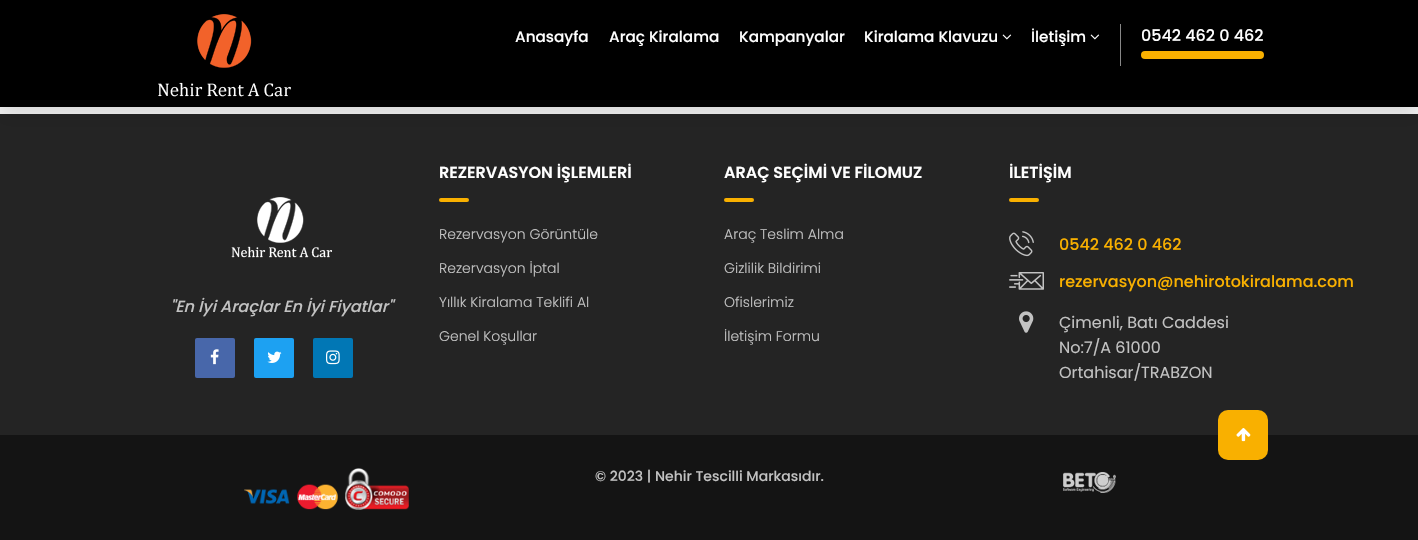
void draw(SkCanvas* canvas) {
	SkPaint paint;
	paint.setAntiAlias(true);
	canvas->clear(0xfff2f2f2);
	paint.setColor(0xff242424);
	canvas->drawRect(SkRect::MakeXYWH(0, 114, 1418, 321), paint);
	paint.setColor(0x1a000000);
	paint.setMaskFilter(SkMaskFilter::MakeBlur(kNormal_SkBlurStyle, 9));
	canvas->drawRect(SkRect::MakeXYWH(0, 9, 1418, 107), paint);
	paint.setMaskFilter(nullptr);
	paint.setColor(0xff000000);
	canvas->drawRect(SkRect::MakeXYWH(0, 0, 1418, 107), paint);
	canvas->drawImageRect(SkImages::DeferredFromEncodedData(SkData::MakeFromFileName("img1.png")), SkRect::MakeXYWH(158, 14, 133, 83), SkSamplingOptions());
	SkFont f1(fontMgr->matchFamilyStyle("Poppins", SkFontStyle(500, SkFontStyle::kNormal_Width, SkFontStyle::kUpright_Slant)), 15.25);
	f1.setSubpixel(true);
	paint.setColor(0xffffffff);
	canvas->drawString("Anasayfa", 515, 42, f1, paint);
	canvas->drawString("Araç Kiralama", 609, 42, f1, paint);
	canvas->drawString("Kampanyalar", 739, 42, f1, paint);
	canvas->drawString("Kiralama Klavuzu", 864, 42, f1, paint);
	canvas->drawImageRect(SkImages::DeferredFromEncodedData(SkData::MakeFromFileName("img2.png")), SkRect::MakeXYWH(1002, 34, 10, 6), SkSamplingOptions());
	canvas->drawString("İletişim", 1031, 42, f1, paint);
	canvas->drawImageRect(SkImages::DeferredFromEncodedData(SkData::MakeFromFileName("img2.png")), SkRect::MakeXYWH(1090, 34, 10, 6), SkSamplingOptions());
	paint.setColor(0xff888888);
	canvas->drawRect(SkRect::MakeXYWH(1120, 24, 1, 42), paint);
	SkFont f2(fontMgr->matchFamilyStyle("Poppins", SkFontStyle(500, SkFontStyle::kNormal_Width, SkFontStyle::kUpright_Slant)), 16);
	f2.setSubpixel(true);
	paint.setColor(0xffffffff);
	canvas->drawString("0542 462 0 462", 1141, 41, f2, paint);
	paint.setColor(0xfff9b000);
	canvas->drawRoundRect(SkRect::MakeXYWH(1141, 51, 123, 8), 4, 4, paint);
	canvas->drawImageRect(SkImages::DeferredFromEncodedData(SkData::MakeFromFileName("img3.png")), SkRect::MakeXYWH(231, 197, 101, 61), SkSamplingOptions());
	SkFont f3(fontMgr->matchFamilyStyle("Poppins", SkFontStyle(500, SkFontStyle::kNormal_Width, SkFontStyle::kItalic_Slant)), 16);
	f3.setSubpixel(true);
	paint.setColor(0xffc2c2c2);
	canvas->drawString("\"En İyi Araçlar En İyi Fiyatlar\"", 170, 312, f3, paint);
	paint.setColor(0xff4867aa);
	canvas->drawRoundRect(SkRect::MakeXYWH(195, 338, 40, 40), 2, 2, paint);
	canvas->drawImageRect(SkImages::DeferredFromEncodedData(SkData::MakeFromFileName("img4.png")), SkRect::MakeXYWH(210, 349, 9, 16), SkSamplingOptions());
	paint.setColor(0xff1da1f2);
	canvas->drawRoundRect(SkRect::MakeXYWH(254, 338, 40, 40), 2, 2, paint);
	canvas->drawImageRect(SkImages::DeferredFromEncodedData(SkData::MakeFromFileName("img5.png")), SkRect::MakeXYWH(267, 351, 15, 12), SkSamplingOptions());
	paint.setColor(0xff0177b5);
	canvas->drawRoundRect(SkRect::MakeXYWH(313, 338, 40, 40), 2, 2, paint);
	canvas->drawImageRect(SkImages::DeferredFromEncodedData(SkData::MakeFromFileName("img6.png")), SkRect::MakeXYWH(326, 350, 14, 15), SkSamplingOptions());
	SkFont f4(fontMgr->matchFamilyStyle("Poppins", SkFontStyle(600, SkFontStyle::kNormal_Width, SkFontStyle::kUpright_Slant)), 16);
	f4.setSubpixel(true);
	paint.setColor(0xffffffff);
	canvas->drawString("REZERVASYON İŞLEMLERİ", 439, 178, f4, paint);
	paint.setColor(0xfff9b000);
	canvas->drawRoundRect(SkRect::MakeXYWH(439, 198, 30, 4), 2, 2, paint);
	SkFont f5(fontMgr->matchFamilyStyle("Poppins", SkFontStyle(300, SkFontStyle::kNormal_Width, SkFontStyle::kUpright_Slant)), 14);
	f5.setSubpixel(true);
	paint.setColor(0xffc2c2c2);
	canvas->drawString("Rezervasyon Görüntüle", 439, 239, f5, paint);
	canvas->drawString("Rezervasyon İptal", 439, 273, f5, paint);
	canvas->drawString("Yıllık Kiralama Teklifi Al", 439, 307, f5, paint);
	canvas->drawString("Genel Koşullar", 439, 341, f5, paint);
	paint.setColor(0xffffffff);
	canvas->drawString("ARAÇ SEÇİMİ VE FİLOMUZ", 724, 178, f4, paint);
	paint.setColor(0xfff9b000);
	canvas->drawRoundRect(SkRect::MakeXYWH(724, 198, 30, 4), 2, 2, paint);
	paint.setColor(0xffc2c2c2);
	canvas->drawString("Araç Teslim Alma", 724, 239, f5, paint);
	canvas->drawString("Gizlilik Bildirimi", 724, 273, f5, paint);
	canvas->drawString("Ofislerimiz", 724, 307, f5, paint);
	canvas->drawString("İletişim Formu", 724, 341, f5, paint);
	paint.setColor(0xffffffff);
	canvas->drawString("İLETİŞİM", 1009, 178, f4, paint);
	paint.setColor(0xfff9b000);
	canvas->drawRoundRect(SkRect::MakeXYWH(1009, 198, 30, 4), 2, 2, paint);
	canvas->drawImageRect(SkImages::DeferredFromEncodedData(SkData::MakeFromFileName("img7.png")), SkRect::MakeXYWH(1009, 231, 25, 26), SkSamplingOptions());
	canvas->drawString("0542 462 0 462", 1059, 250, f2, paint);
	canvas->drawImageRect(SkImages::DeferredFromEncodedData(SkData::MakeFromFileName("img8.png")), SkRect::MakeXYWH(1009, 272, 35, 18), SkSamplingOptions());
	canvas->drawString("rezervasyon@nehirotokiralama.com", 1059, 287, f2, paint);
	canvas->drawImageRect(SkImages::DeferredFromEncodedData(SkData::MakeFromFileName("img9.png")), SkRect::MakeXYWH(1019, 311, 15, 22), SkSamplingOptions());
	SkFont f6(fontMgr->matchFamilyStyle("Poppins", SkFontStyle::Normal()), 16);
	f6.setSubpixel(true);
	paint.setColor(0xffc2c2c2);
	canvas->drawString("Çimenli, Batı Caddesi", 1059, 328, f6, paint);
	canvas->drawString("No:7/A 61000", 1059, 353, f6, paint);
	canvas->drawString("Ortahisar/TRABZON", 1059, 378, f6, paint);
	paint.setColor(0xff141414);
	canvas->drawRect(SkRect::MakeXYWH(0, 435, 1418, 105), paint);
	paint.setColor(0xfff9b000);
	canvas->drawRoundRect(SkRect::MakeXYWH(1218, 410, 50, 50), 10, 10, paint);
	canvas->drawImageRect(SkImages::DeferredFromEncodedData(SkData::MakeFromFileName("img10.png")), SkRect::MakeXYWH(1236, 428, 15, 14), SkSamplingOptions());
	canvas->drawImageRect(SkImages::DeferredFromEncodedData(SkData::MakeFromFileName("img11.png")), SkRect::MakeXYWH(244, 468, 165, 42), SkSamplingOptions());
	SkFont f7(fontMgr->matchFamilyStyle("Poppins", SkFontStyle(500, SkFontStyle::kNormal_Width, SkFontStyle::kUpright_Slant)), 14);
	f7.setSubpixel(true);
	paint.setColor(0xffc2c2c2);
	canvas->drawString("© 2023 | Nehir Tescilli Markasıdır.", 595, 481, f7, paint);
	canvas->drawImageRect(SkImages::DeferredFromEncodedData(SkData::MakeFromFileName("img12.png")), SkRect::MakeXYWH(1063, 472, 53, 21), SkSamplingOptions());
}
